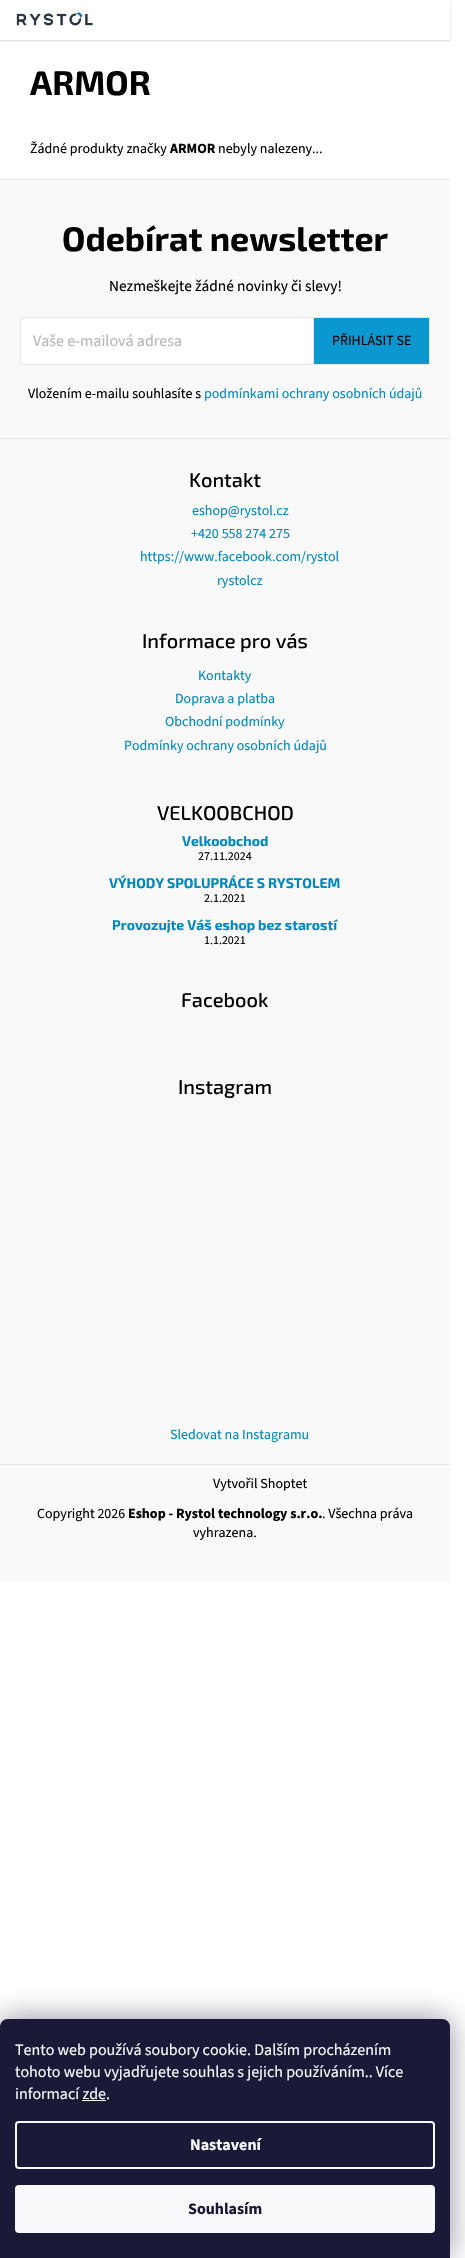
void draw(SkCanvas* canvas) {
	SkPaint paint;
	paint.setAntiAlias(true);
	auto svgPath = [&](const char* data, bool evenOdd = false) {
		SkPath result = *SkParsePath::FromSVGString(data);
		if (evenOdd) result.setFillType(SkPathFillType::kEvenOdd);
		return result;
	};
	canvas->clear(0xffffffff);
	canvas->save();
	canvas->clipPath(svgPath("M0 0H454V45H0ZM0 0H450V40H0Z", true), true);
	paint.setColor(0x29000000);
	paint.setMaskFilter(SkMaskFilter::MakeBlur(kNormal_SkBlurStyle, 1));
	canvas->drawRect(SkRect::MakeXYWH(0, 1, 450, 40), paint);
	paint.setMaskFilter(nullptr);
	canvas->restore();
	canvas->drawImageRect(SkImages::DeferredFromEncodedData(SkData::MakeFromFileName("img1.png")), SkRect::MakeXYWH(16, 11, 77, 15), SkSamplingOptions());
	SkFont f1(fontMgr->matchFamilyStyle("Exo 2", SkFontStyle::Bold()), 34);
	f1.setSubpixel(true);
	paint.setColor(0xff000000);
	canvas->drawString("ARMOR", 30, 95, f1, paint);
	SkFont f2(fontMgr->matchFamilyStyle("Source Sans 3", SkFontStyle::Normal()), 14);
	f2.setSubpixel(true);
	canvas->drawString("Žádné produkty značky", 30, 153, f2, paint);
	SkFont f3(fontMgr->matchFamilyStyle("Source Sans 3", SkFontStyle::Bold()), 14);
	f3.setSubpixel(true);
	canvas->drawString("ARMOR", 170, 153, f3, paint);
	canvas->drawString("nebyly nalezeny...", 218, 153, f2, paint);
	paint.setColor(0xfff9f9f9);
	canvas->drawRect(SkRect::MakeXYWH(0, 180, 450, 1402), paint);
	paint.setColor(0xffe6e6e6);
	canvas->drawRect(SkRect::MakeXYWH(0, 179, 450, 1), paint);
	canvas->drawRect(SkRect::MakeXYWH(0, 438, 450, 1), paint);
	paint.setColor(0xff000000);
	canvas->drawString("Odebírat newsletter", 62, 251, f1, paint);
	SkFont f4(fontMgr->matchFamilyStyle("Source Sans 3", SkFontStyle::Normal()), 15.4);
	f4.setSubpixel(true);
	canvas->drawString("Nezmeškejte žádné novinky či slevy!", 109, 291, f4, paint);
	paint.setColor(0xffffffff);
	canvas->drawRoundRect(SkRect::MakeXYWH(20.5, 317.5, 409, 47), 2.5, 2.5, paint);
	paint.setStroke(true);
	paint.setStrokeWidth(1);
	paint.setColor(0xffe6e6e6);
	canvas->drawRoundRect(SkRect::MakeXYWH(20.5, 317.5, 409, 47), 2.5, 2.5, paint);
	SkFont f5(fontMgr->matchFamilyStyle("Source Sans 3", SkFontStyle::Normal()), 16);
	f5.setSubpixel(true);
	paint.setStroke(false);
	paint.setColor(0xffb6b6b6);
	canvas->drawString("Vaše e-mailová adresa", 33, 346, f5, paint);
	paint.setColor(0xff0b98d0);
	canvas->drawRect(SkRect::MakeXYWH(313.5, 317.5, 116, 47), paint);
	paint.setStroke(true);
	paint.setColor(0xffe6e6e6);
	canvas->drawRect(SkRect::MakeXYWH(313.5, 317.5, 116, 47), paint);
	paint.setStroke(false);
	paint.setColor(0xff000000);
	canvas->drawString("PŘIHLÁSIT SE", 332, 345, f2, paint);
	canvas->drawString("Vložením e-mailu souhlasíte s", 28, 398, f2, paint);
	paint.setColor(0xff0088bf);
	canvas->drawString("podmínkami ochrany osobních údajů", 204, 398, f2, paint);
	SkFont f6(fontMgr->matchFamilyStyle("Exo 2", SkFontStyle(500, SkFontStyle::kNormal_Width, SkFontStyle::kUpright_Slant)), 20);
	f6.setSubpixel(true);
	paint.setColor(0xff000000);
	canvas->drawString("Kontakt", 189, 487, f6, paint);
	paint.setColor(0xff0088bf);
	canvas->drawString("eshop@rystol.cz", 192, 515, f2, paint);
	canvas->drawString("+420 558 274 275", 191, 538, f2, paint);
	canvas->drawString("https://www.facebook.com/rystol", 140, 561, f2, paint);
	canvas->drawString("rystolcz", 217, 585, f2, paint);
	paint.setColor(0xff000000);
	canvas->drawString("Informace pro vás", 142, 648, f6, paint);
	paint.setColor(0xff0088bf);
	canvas->drawString("Kontakty", 198, 680, f2, paint);
	canvas->drawString("Doprava a platba", 175, 703, f2, paint);
	canvas->drawString("Obchodní podmínky", 165, 726, f2, paint);
	canvas->drawString("Podmínky ochrany osobních údajů", 124, 750, f2, paint);
	paint.setColor(0xff000000);
	canvas->drawString("VELKOOBCHOD", 157, 820, f6, paint);
	SkFont f7(fontMgr->matchFamilyStyle("Exo 2", SkFontStyle::Bold()), 14);
	f7.setSubpixel(true);
	paint.setColor(0xff0088bf);
	canvas->drawString("Velkoobchod", 182, 846, f7, paint);
	SkFont f8(fontMgr->matchFamilyStyle("Source Sans 3", SkFontStyle::Normal()), 12);
	f8.setSubpixel(true);
	paint.setColor(0xff000000);
	canvas->drawString("27.11.2024", 198, 860, f8, paint);
	paint.setColor(0xff0088bf);
	canvas->drawString("VÝHODY SPOLUPRÁCE S RYSTOLEM", 109, 888, f7, paint);
	paint.setColor(0xff000000);
	canvas->drawString("2.1.2021", 204, 902, f8, paint);
	paint.setColor(0xff0088bf);
	canvas->drawString("Provozujte Váš eshop bez starostí", 112, 930, f7, paint);
	paint.setColor(0xff000000);
	canvas->drawString("1.1.2021", 204, 944, f8, paint);
	canvas->drawString("Facebook", 181, 1007, f6, paint);
	canvas->drawString("Instagram", 178, 1094, f6, paint);
	paint.setColor(0xff0088bf);
	canvas->drawString("Sledovat na Instagramu", 170, 1439, f2, paint);
	paint.setColor(0xffe6e6e6);
	canvas->drawRect(SkRect::MakeXYWH(0, 1464, 450, 1), paint);
	paint.setColor(0xff000000);
	canvas->drawString("Vytvořil Shoptet", 213, 1488, f2, paint);
	canvas->drawString("Copyright 2026", 37, 1518, f2, paint);
	canvas->drawString("Eshop - Rystol technology s.r.o.", 128, 1518, f3, paint);
	canvas->drawString(". Všechna práva", 322, 1518, f2, paint);
	canvas->drawString("vyhrazena.", 193, 1537, f2, paint);
	paint.setColor(0x801b1939);
	paint.setMaskFilter(SkMaskFilter::MakeBlur(kNormal_SkBlurStyle, 15));
	canvas->drawRoundRect(SkRect::MakeXYWH(0, 2019, 450, 239), 8, 8, paint);
	paint.setMaskFilter(nullptr);
	paint.setColor(0xff1a1937);
	canvas->drawPath(svgPath("M8 2019H442C446.5 2019 450 2022.5 450 2027V2258H0V2027C0 2022.5 3.5 2019 8 2019Z"), paint);
	paint.setColor(0xfff8fafb);
	canvas->drawString("Tento web používá soubory cookie. Dalším procházením", 15, 2055, f5, paint);
	canvas->drawString("tohoto webu vyjadřujete souhlas s jejich používáním.. Více", 15, 2077, f5, paint);
	canvas->drawString("informací zde.", 15, 2099, f5, paint);
	canvas->drawRect(SkRect::MakeXYWH(82, 2100, 24, 1), paint);
	paint.setStroke(true);
	paint.setStrokeWidth(2);
	canvas->drawRoundRect(SkRect::MakeXYWH(16, 2122, 418, 46), 3, 3, paint);
	SkFont f9(fontMgr->matchFamilyStyle("Source Sans 3", SkFontStyle::Bold()), 16);
	f9.setSubpixel(true);
	paint.setStroke(false);
	canvas->drawString("Nastavení", 190, 2150, f9, paint);
	canvas->drawRoundRect(SkRect::MakeXYWH(15, 2185, 420, 48), 4, 4, paint);
	paint.setColor(0xff1a1937);
	canvas->drawString("Souhlasím", 188, 2214, f9, paint);
}
